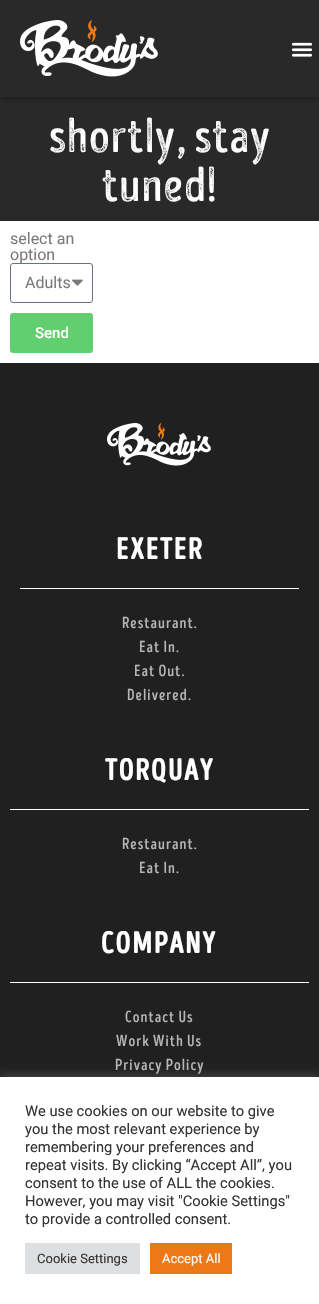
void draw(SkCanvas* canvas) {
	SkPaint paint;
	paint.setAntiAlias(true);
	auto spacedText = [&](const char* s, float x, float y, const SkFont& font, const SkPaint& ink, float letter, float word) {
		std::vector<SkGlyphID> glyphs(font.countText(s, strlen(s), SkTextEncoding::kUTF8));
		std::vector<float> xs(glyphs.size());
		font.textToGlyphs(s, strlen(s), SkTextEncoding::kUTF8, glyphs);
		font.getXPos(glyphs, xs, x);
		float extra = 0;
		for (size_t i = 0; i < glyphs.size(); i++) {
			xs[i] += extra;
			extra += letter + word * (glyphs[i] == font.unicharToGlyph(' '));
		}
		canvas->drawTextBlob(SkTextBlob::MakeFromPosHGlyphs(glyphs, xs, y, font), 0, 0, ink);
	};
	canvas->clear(0xffffffff);
	paint.setColor(0xff292929);
	canvas->drawRect(SkRect::MakeXYWH(0, 97, 319, 124), paint);
	paint.setColor(0x80000000);
	paint.setMaskFilter(SkMaskFilter::MakeBlur(kNormal_SkBlurStyle, 5));
	canvas->drawRect(SkRect::MakeXYWH(0, 0, 319, 97), paint);
	paint.setMaskFilter(nullptr);
	paint.setColor(0xff292929);
	canvas->drawRect(SkRect::MakeXYWH(0, 0, 319, 97), paint);
	canvas->drawImageRect(SkImages::DeferredFromEncodedData(SkData::MakeFromFileName("img1.png")), SkRect::MakeXYWH(20, 20, 138, 57), SkSamplingOptions());
	canvas->drawImageRect(SkImages::DeferredFromEncodedData(SkData::MakeFromFileName("img2.png")), SkRect::MakeXYWH(291, 42, 22, 15), SkSamplingOptions());
	SkFont f1(fontMgr->matchFamilyStyle("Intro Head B", SkFontStyle::Normal()), 49);
	f1.setSubpixel(true);
	paint.setColor(0xffffffff);
	spacedText("shortly, stay", 49, 152, f1, paint, 1, 0);
	spacedText("tuned!", 102, 201, f1, paint, 1, 0);
	SkFont f2(fontMgr->matchFamilyStyle("Roboto", SkFontStyle::Normal()), 16);
	f2.setSubpixel(true);
	paint.setColor(0xff7a7a7a);
	canvas->drawString("select an", 10, 244, f2, paint);
	canvas->drawString("option", 10, 260, f2, paint);
	paint.setColor(0xffffffff);
	canvas->drawRoundRect(SkRect::MakeXYWH(10.5, 263.5, 82, 39), 2.5, 2.5, paint);
	paint.setStroke(true);
	paint.setStrokeWidth(1);
	paint.setColor(0xff69727d);
	canvas->drawRoundRect(SkRect::MakeXYWH(10.5, 263.5, 82, 39), 2.5, 2.5, paint);
	paint.setStroke(false);
	paint.setColor(0xff7a7a7a);
	canvas->drawString("Adults", 25, 288, f2, paint);
	canvas->drawImageRect(SkImages::DeferredFromEncodedData(SkData::MakeFromFileName("img3.png")), SkRect::MakeXYWH(72, 279, 11, 7), SkSamplingOptions());
	paint.setColor(0xff61ce70);
	canvas->drawRoundRect(SkRect::MakeXYWH(10, 313, 83, 40), 3, 3, paint);
	SkFont f3(fontMgr->matchFamilyStyle("Roboto", SkFontStyle(500, SkFontStyle::kNormal_Width, SkFontStyle::kUpright_Slant)), 15);
	f3.setSubpixel(true);
	paint.setColor(0xffffffff);
	canvas->drawString("Send", 35, 338, f3, paint);
	paint.setColor(0xff202020);
	canvas->drawRect(SkRect::MakeXYWH(0, 363, 319, 714), paint);
	canvas->drawImageRect(SkImages::DeferredFromEncodedData(SkData::MakeFromFileName("img4.png")), SkRect::MakeXYWH(107, 423, 104, 43), SkSamplingOptions());
	SkFont f4(fontMgr->matchFamilyStyle("Intro Head B", SkFontStyle::Bold()), 30);
	f4.setSubpixel(true);
	paint.setColor(0xffffffff);
	spacedText("EXETER", 116, 559, f4, paint, 2, 0);
	canvas->drawRect(SkRect::MakeXYWH(20, 588, 279, 1), paint);
	SkFont f5(fontMgr->matchFamilyStyle("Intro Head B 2", SkFontStyle::Normal()), 16);
	f5.setSubpixel(true);
	paint.setColor(0xffb6b6b6);
	spacedText("Restaurant.", 122, 628, f5, paint, 1, 0);
	spacedText("Eat In.", 139, 652, f5, paint, 1, 0);
	spacedText("Eat Out.", 134, 676, f5, paint, 1, 0);
	spacedText("Delivered.", 127, 700, f5, paint, 1, 0);
	paint.setColor(0xffffffff);
	spacedText("TORQUAY", 105, 780, f4, paint, 2, 0);
	canvas->drawRect(SkRect::MakeXYWH(10, 809, 299, 1), paint);
	paint.setColor(0xffb6b6b6);
	spacedText("Restaurant.", 122, 849, f5, paint, 1, 0);
	spacedText("Eat In.", 139, 873, f5, paint, 1, 0);
	paint.setColor(0xffffffff);
	spacedText("COMPANY", 101, 953, f4, paint, 2, 0);
	canvas->drawRect(SkRect::MakeXYWH(10, 982, 299, 1), paint);
	paint.setColor(0xffb6b6b6);
	spacedText("Contact Us", 125, 1022, f5, paint, 1, 0);
	spacedText("Work With Us", 116, 1046, f5, paint, 1, 0);
	spacedText("Privacy Policy", 115, 1070, f5, paint, 1, 0);
	paint.setColor(0x4dacabab);
	paint.setMaskFilter(SkMaskFilter::MakeBlur(kNormal_SkBlurStyle, 5));
	canvas->drawRect(SkRect::MakeXYWH(0, 1076, 319, 227), paint);
	paint.setMaskFilter(nullptr);
	paint.setColor(0xffffffff);
	canvas->drawRect(SkRect::MakeXYWH(0, 1077, 319, 227), paint);
	SkFont f6(fontMgr->matchFamilyStyle("Roboto", SkFontStyle::Normal()), 14.7);
	f6.setSubpixel(true);
	paint.setColor(0xff333333);
	canvas->drawString("We use cookies on our website to give", 25, 1116, f6, paint);
	canvas->drawString("you the most relevant experience by", 25, 1134, f6, paint);
	canvas->drawString("remembering your preferences and", 25, 1152, f6, paint);
	canvas->drawString("repeat visits. By clicking “Accept All”, you", 25, 1170, f6, paint);
	canvas->drawString("consent to the use of ALL the cookies.", 25, 1188, f6, paint);
	canvas->drawString("However, you may visit \"Cookie Settings\"", 25, 1206, f6, paint);
	canvas->drawString("to provide a controlled consent.", 25, 1224, f6, paint);
	paint.setColor(0xffdedfe0);
	canvas->drawRect(SkRect::MakeXYWH(25, 1243, 115, 31), paint);
	SkFont f7(fontMgr->matchFamilyStyle("Roboto", SkFontStyle::Normal()), 13);
	f7.setSubpixel(true);
	paint.setColor(0xff333333);
	canvas->drawString("Cookie Settings", 37, 1263, f7, paint);
	paint.setColor(0xffed7916);
	canvas->drawRect(SkRect::MakeXYWH(150, 1243, 82, 31), paint);
	paint.setColor(0xffffffff);
	canvas->drawString("Accept All", 162, 1263, f7, paint);
}
